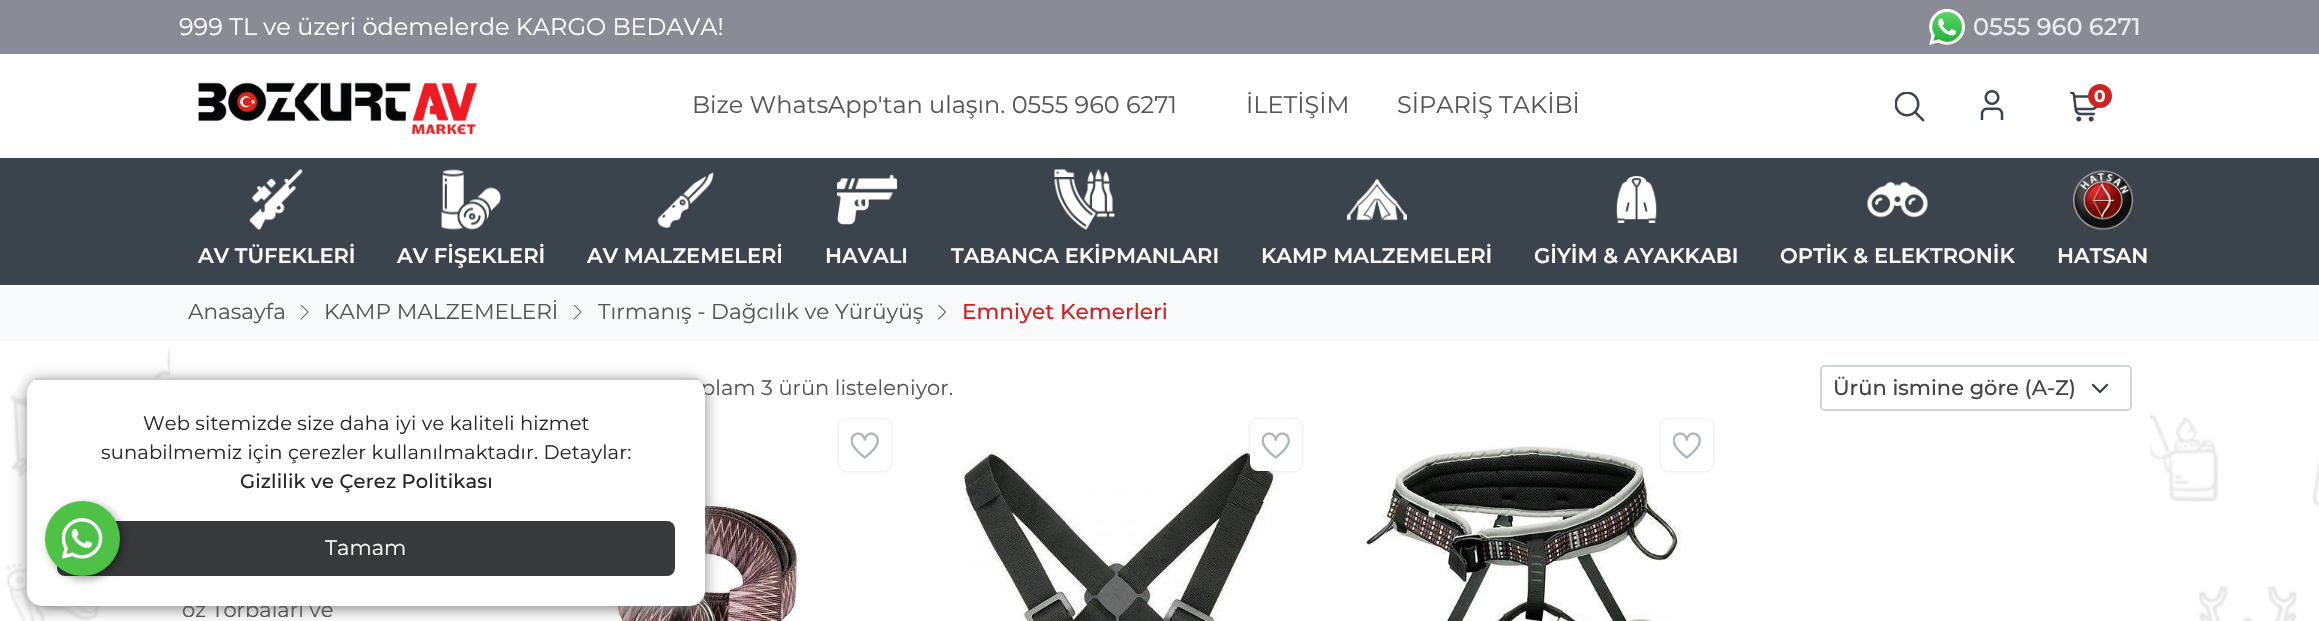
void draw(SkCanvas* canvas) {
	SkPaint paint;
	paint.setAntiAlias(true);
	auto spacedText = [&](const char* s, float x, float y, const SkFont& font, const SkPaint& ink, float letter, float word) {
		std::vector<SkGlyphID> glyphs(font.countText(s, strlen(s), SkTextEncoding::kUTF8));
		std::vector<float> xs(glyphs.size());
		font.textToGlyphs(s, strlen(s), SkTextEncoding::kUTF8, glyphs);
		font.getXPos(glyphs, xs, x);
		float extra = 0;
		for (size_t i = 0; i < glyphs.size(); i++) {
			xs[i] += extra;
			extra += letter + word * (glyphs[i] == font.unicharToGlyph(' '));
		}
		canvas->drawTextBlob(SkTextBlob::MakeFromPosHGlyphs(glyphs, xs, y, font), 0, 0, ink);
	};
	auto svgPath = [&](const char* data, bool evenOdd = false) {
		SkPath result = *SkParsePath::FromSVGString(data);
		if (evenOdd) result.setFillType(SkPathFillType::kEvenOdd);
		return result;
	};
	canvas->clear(0xffffffff);
	canvas->drawImageRect(SkImages::DeferredFromEncodedData(SkData::MakeFromFileName("img1.png")), SkRect::MakeXYWH(0, 341, 2319, 280), SkSamplingOptions());
	paint.setColor(0xffffffff);
	canvas->drawRect(SkRect::MakeXYWH(170, 341, 1980, 280), paint);
	canvas->drawImageRect(SkImages::DeferredFromEncodedData(SkData::MakeFromFileName("img20.png")), SkRect::MakeXYWH(613, 501, 187, 120), SkSamplingOptions());
	paint.setColor(0xff888888);
	paint.setMaskFilter(SkMaskFilter::MakeBlur(kNormal_SkBlurStyle, 7.5));
	canvas->drawRoundRect(SkRect::MakeXYWH(27, 381, 678, 228), 15, 15, paint);
	paint.setMaskFilter(nullptr);
	SkFont f1(fontMgr->matchFamilyStyle("Montserrat", SkFontStyle::Normal()), 21);
	f1.setSubpixel(true);
	paint.setColor(0xff555555);
	canvas->drawString("plam 3 ürün listeleniyor.", 701, 395, f1, paint);
	canvas->drawString("oz Torbaları ve", 182, 617, f1, paint);
	paint.setColor(0xffffffff);
	canvas->drawRoundRect(SkRect::MakeXYWH(27, 378, 678, 228), 15, 15, paint);
	paint.setColor(0xff37393b);
	canvas->drawRoundRect(SkRect::MakeXYWH(57, 521, 618, 55), 8, 8, paint);
	paint.setColor(0x66000000);
	paint.setMaskFilter(SkMaskFilter::MakeBlur(kNormal_SkBlurStyle, 4.5));
	canvas->drawRoundRect(SkRect::MakeXYWH(48, 504, 75, 75), 37.5, 37.5, paint);
	paint.setMaskFilter(nullptr);
	paint.setColor(0xff4dc247);
	canvas->drawCircle(82.5, 538.5, 37.5, paint);
	canvas->drawImageRect(SkImages::DeferredFromEncodedData(SkData::MakeFromFileName("img2.png")), SkRect::MakeXYWH(62, 518, 41, 41), SkSamplingOptions());
	paint.setColor(0xff898c95);
	canvas->drawRect(SkRect::MakeXYWH(0, 0, 2319, 54), paint);
	SkFont f2(fontMgr->matchFamilyStyle("Montserrat", SkFontStyle::Normal()), 24);
	f2.setSubpixel(true);
	paint.setColor(0xffffffff);
	canvas->drawString("999 TL ve üzeri ödemelerde KARGO BEDAVA!", 179, 35, f2, paint);
	canvas->drawImageRect(SkImages::DeferredFromEncodedData(SkData::MakeFromFileName("img3.png")), SkRect::MakeXYWH(1929, 9, 36, 36), SkSamplingOptions());
	SkFont f3(fontMgr->matchFamilyStyle("Montserrat", SkFontStyle(500, SkFontStyle::kNormal_Width, SkFontStyle::kUpright_Slant)), 24);
	f3.setSubpixel(true);
	paint.setColor(0xffe9ecef);
	canvas->drawString("0555 960 6271", 1973, 35, f3, paint);
	canvas->drawImageRect(SkImages::DeferredFromEncodedData(SkData::MakeFromFileName("img4.png")), SkRect::MakeXYWH(198, 82, 280, 53), SkSamplingOptions());
	paint.setColor(0xff555555);
	canvas->drawString("Bize WhatsApp'tan ulaşın. 0555 960 6271", 692, 113, f2, paint);
	canvas->drawString("İLETİŞİM", 1246, 113, f2, paint);
	canvas->drawString("SİPARİŞ TAKİBİ", 1397, 113, f2, paint);
	canvas->drawImageRect(SkImages::DeferredFromEncodedData(SkData::MakeFromFileName("img5.png")), SkRect::MakeXYWH(1895, 92, 30, 30), SkSamplingOptions());
	canvas->drawImageRect(SkImages::DeferredFromEncodedData(SkData::MakeFromFileName("img6.png")), SkRect::MakeXYWH(1980, 90, 24, 30), SkSamplingOptions());
	canvas->drawImageRect(SkImages::DeferredFromEncodedData(SkData::MakeFromFileName("img7.png")), SkRect::MakeXYWH(2070, 92, 28, 30), SkSamplingOptions());
	paint.setColor(0xffcd2525);
	canvas->drawCircle(2100, 96, 12, paint);
	SkFont f4(fontMgr->matchFamilyStyle("Montserrat", SkFontStyle::Bold()), 17);
	f4.setSubpixel(true);
	paint.setColor(0xffffffff);
	canvas->drawString("0", 2094, 102, f4, paint);
	paint.setColor(0xff3b444d);
	canvas->drawRect(SkRect::MakeXYWH(0, 158, 2319, 127), paint);
	canvas->drawImageRect(SkImages::DeferredFromEncodedData(SkData::MakeFromFileName("img8.png")), SkRect::MakeXYWH(249, 169, 54, 61), SkSamplingOptions());
	SkFont f5(fontMgr->matchFamilyStyle("Montserrat", SkFontStyle(600, SkFontStyle::kNormal_Width, SkFontStyle::kUpright_Slant)), 21);
	f5.setSubpixel(true);
	paint.setColor(0xffffffff);
	canvas->drawString("AV TÜFEKLERİ", 198, 263, f5, paint);
	canvas->drawImageRect(SkImages::DeferredFromEncodedData(SkData::MakeFromFileName("img9.png")), SkRect::MakeXYWH(441, 169, 60, 61), SkSamplingOptions());
	canvas->drawString("AV FİŞEKLERİ", 397, 263, f5, paint);
	canvas->drawImageRect(SkImages::DeferredFromEncodedData(SkData::MakeFromFileName("img10.png")), SkRect::MakeXYWH(657, 172, 57, 56), SkSamplingOptions());
	canvas->drawString("AV MALZEMELERİ", 587, 263, f5, paint);
	canvas->drawImageRect(SkImages::DeferredFromEncodedData(SkData::MakeFromFileName("img11.png")), SkRect::MakeXYWH(837, 174, 60, 51), SkSamplingOptions());
	canvas->drawString("HAVALI", 825, 263, f5, paint);
	canvas->drawImageRect(SkImages::DeferredFromEncodedData(SkData::MakeFromFileName("img12.png")), SkRect::MakeXYWH(1054, 169, 61, 61), SkSamplingOptions());
	canvas->drawString("TABANCA EKİPMANLARI", 951, 263, f5, paint);
	canvas->drawImageRect(SkImages::DeferredFromEncodedData(SkData::MakeFromFileName("img13.png")), SkRect::MakeXYWH(1347, 178, 60, 43), SkSamplingOptions());
	canvas->drawString("KAMP MALZEMELERİ", 1261, 263, f5, paint);
	canvas->drawImageRect(SkImages::DeferredFromEncodedData(SkData::MakeFromFileName("img14.png")), SkRect::MakeXYWH(1616, 176, 41, 47), SkSamplingOptions());
	canvas->drawString("GİYİM & AYAKKABI", 1534, 263, f5, paint);
	canvas->drawImageRect(SkImages::DeferredFromEncodedData(SkData::MakeFromFileName("img15.png")), SkRect::MakeXYWH(1867, 181, 61, 37), SkSamplingOptions());
	canvas->drawString("OPTİK & ELEKTRONİK", 1780, 263, f5, paint);
	canvas->drawImageRect(SkImages::DeferredFromEncodedData(SkData::MakeFromFileName("img16.png")), SkRect::MakeXYWH(2073, 170, 60, 60), SkSamplingOptions());
	canvas->drawString("HATSAN", 2057, 263, f5, paint);
	paint.setColor(0xffcccccc);
	canvas->drawRect(SkRect::MakeXYWH(35, 378, 663, 2), paint);
	SkFont f6(fontMgr->matchFamilyStyle("Montserrat", SkFontStyle::Normal()), 19.5);
	f6.setSubpixel(true);
	paint.setColor(0xff262626);
	spacedText("Web sitemizde size daha iyi ve kaliteli hizmet", 143, 430, f6, paint, 0.15, 0);
	spacedText("sunabilmemiz için çerezler kullanılmaktadır. Detaylar:", 101, 459, f6, paint, 0.15, 0);
	SkFont f7(fontMgr->matchFamilyStyle("Montserrat", SkFontStyle(500, SkFontStyle::kNormal_Width, SkFontStyle::kUpright_Slant)), 19.5);
	f7.setSubpixel(true);
	spacedText("Gizlilik ve Çerez Politikası", 240, 488, f7, paint, 0.15, 0);
	paint.setColor(0xffffffff);
	canvas->drawString("Tamam", 325, 555, f1, paint);
	paint.setColor(0xfff8f9fa);
	canvas->drawRect(SkRect::MakeXYWH(0, 285, 2319, 56), paint);
	SkFont f8(fontMgr->matchFamilyStyle("Montserrat", SkFontStyle::Normal()), 21.6);
	f8.setSubpixel(true);
	paint.setColor(0xff555555);
	canvas->drawString("Anasayfa", 188, 319, f8, paint);
	canvas->drawImageRect(SkImages::DeferredFromEncodedData(SkData::MakeFromFileName("img17.png")), SkRect::MakeXYWH(300, 305, 9, 15), SkSamplingOptions());
	canvas->drawString("KAMP MALZEMELERİ", 324, 319, f8, paint);
	canvas->drawImageRect(SkImages::DeferredFromEncodedData(SkData::MakeFromFileName("img17.png")), SkRect::MakeXYWH(573, 305, 9, 15), SkSamplingOptions());
	canvas->drawString("Tırmanış - Dağcılık ve Yürüyüş", 598, 319, f8, paint);
	canvas->drawImageRect(SkImages::DeferredFromEncodedData(SkData::MakeFromFileName("img18.png")), SkRect::MakeXYWH(938, 305, 8, 15), SkSamplingOptions());
	SkFont f9(fontMgr->matchFamilyStyle("Montserrat", SkFontStyle(500, SkFontStyle::kNormal_Width, SkFontStyle::kUpright_Slant)), 21.6);
	f9.setSubpixel(true);
	paint.setColor(0xffcd2525);
	canvas->drawString("Emniyet Kemerleri", 962, 319, f9, paint);
	paint.setStroke(true);
	paint.setStrokeWidth(2.2);
	paint.setStrokeCap(SkPaint::kRound_Cap);
	paint.setStrokeJoin(SkPaint::kRound_Join);
	paint.setColor(0xff343a40);
	canvas->drawPath(svgPath("M2093 385L2100 392L2107 385"), paint);
	paint.setStrokeWidth(2);
	paint.setStrokeCap(SkPaint::kButt_Cap);
	paint.setStrokeJoin(SkPaint::kMiter_Join);
	paint.setColor(0xffced4da);
	canvas->drawRoundRect(SkRect::MakeXYWH(1821, 366, 310, 44), 4, 4, paint);
	SkFont f10(fontMgr->matchFamilyStyle("Montserrat", SkFontStyle(500, SkFontStyle::kNormal_Width, SkFontStyle::kUpright_Slant)), 21);
	f10.setSubpixel(true);
	paint.setStroke(false);
	paint.setColor(0xff444444);
	canvas->drawString("Ürün ismine göre (A-Z)", 1833, 395, f10, paint);
	paint.setColor(0x26000000);
	paint.setMaskFilter(SkMaskFilter::MakeBlur(kNormal_SkBlurStyle, 1.5));
	canvas->drawRoundRect(SkRect::MakeXYWH(839, 419, 52, 52), 8, 8, paint);
	paint.setMaskFilter(nullptr);
	paint.setColor(0xffffffff);
	canvas->drawRoundRect(SkRect::MakeXYWH(839, 419, 52, 52), 8, 8, paint);
	canvas->drawImageRect(SkImages::DeferredFromEncodedData(SkData::MakeFromFileName("img19.png")), SkRect::MakeXYWH(851, 432, 28, 27), SkSamplingOptions());
	canvas->drawImageRect(SkImages::DeferredFromEncodedData(SkData::MakeFromFileName("img21.png")), SkRect::MakeXYWH(962, 450, 315, 171), SkSamplingOptions());
	paint.setColor(0x26000000);
	paint.setMaskFilter(SkMaskFilter::MakeBlur(kNormal_SkBlurStyle, 1.5));
	canvas->drawRoundRect(SkRect::MakeXYWH(1250, 419, 52, 52), 8, 8, paint);
	paint.setMaskFilter(nullptr);
	paint.setColor(0xffffffff);
	canvas->drawRoundRect(SkRect::MakeXYWH(1250, 419, 52, 52), 8, 8, paint);
	canvas->drawImageRect(SkImages::DeferredFromEncodedData(SkData::MakeFromFileName("img19.png")), SkRect::MakeXYWH(1262, 432, 28, 27), SkSamplingOptions());
	canvas->drawImageRect(SkImages::DeferredFromEncodedData(SkData::MakeFromFileName("img22.png")), SkRect::MakeXYWH(1364, 446, 318, 175), SkSamplingOptions());
	paint.setColor(0x26000000);
	paint.setMaskFilter(SkMaskFilter::MakeBlur(kNormal_SkBlurStyle, 1.5));
	canvas->drawRoundRect(SkRect::MakeXYWH(1661, 419, 52, 52), 8, 8, paint);
	paint.setMaskFilter(nullptr);
	paint.setColor(0xffffffff);
	canvas->drawRoundRect(SkRect::MakeXYWH(1661, 419, 52, 52), 8, 8, paint);
	canvas->drawImageRect(SkImages::DeferredFromEncodedData(SkData::MakeFromFileName("img19.png")), SkRect::MakeXYWH(1673, 432, 28, 27), SkSamplingOptions());
}
